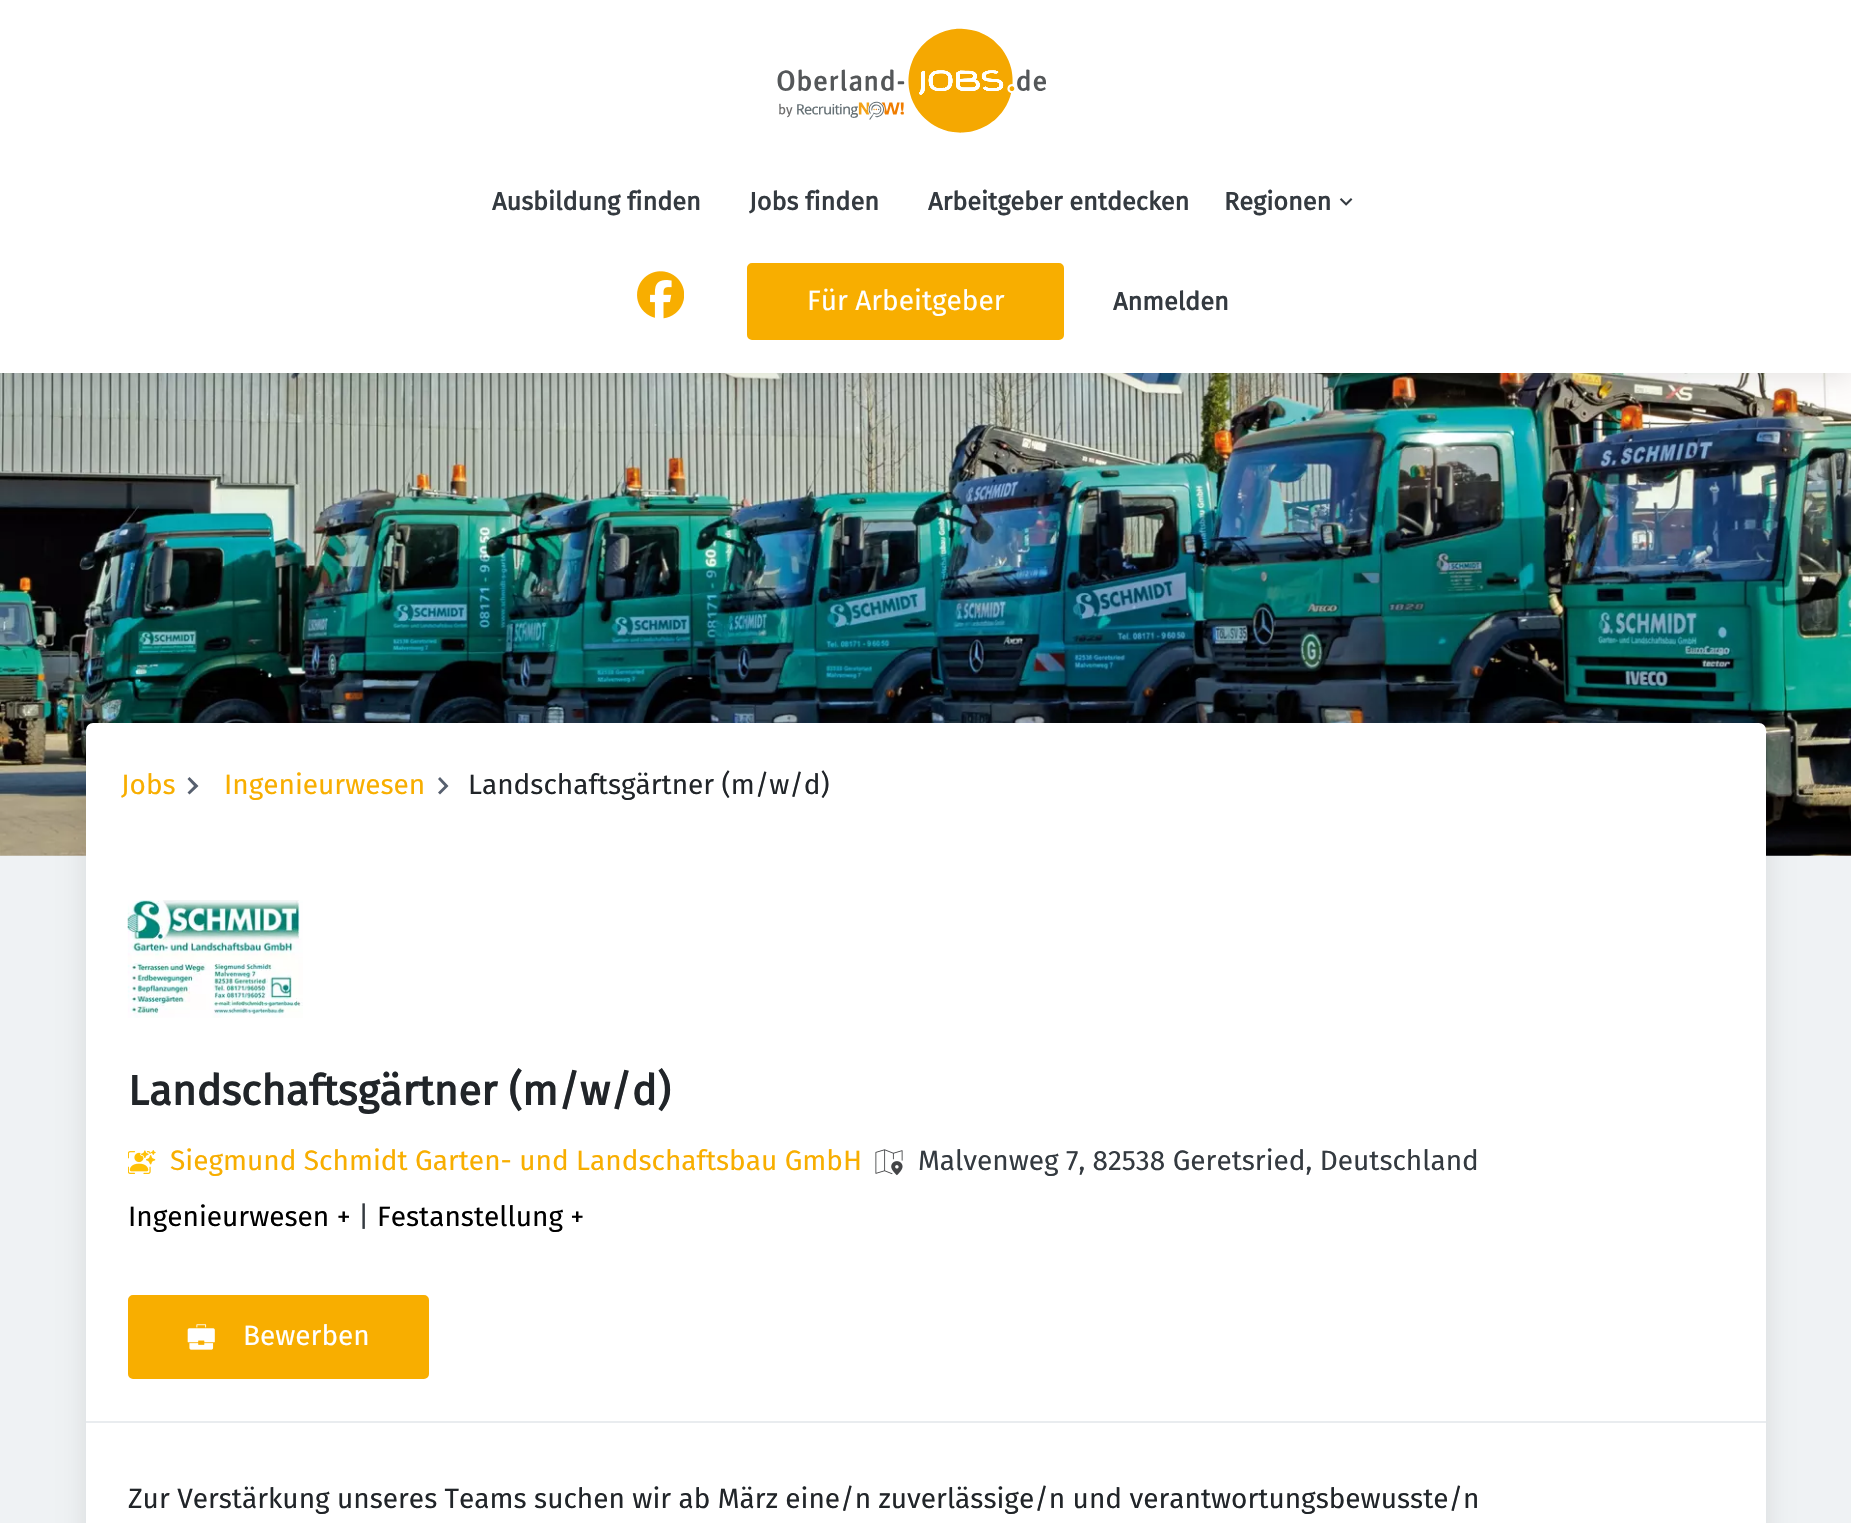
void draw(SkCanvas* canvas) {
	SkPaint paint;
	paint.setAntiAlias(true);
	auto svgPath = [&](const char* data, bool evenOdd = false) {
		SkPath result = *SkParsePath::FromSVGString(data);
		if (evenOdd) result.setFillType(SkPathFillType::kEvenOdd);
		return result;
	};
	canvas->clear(0xffeff2f4);
	canvas->drawImageRect(SkImages::DeferredFromEncodedData(SkData::MakeFromFileName("img4.png")), SkRect::MakeXYWH(0, 373, 1851, 483), SkSamplingOptions());
	paint.setColor(0x1a000000);
	paint.setMaskFilter(SkMaskFilter::MakeBlur(kNormal_SkBlurStyle, 13));
	canvas->drawRect(SkRect::MakeXYWH(0, 5, 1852, 373), paint);
	paint.setMaskFilter(nullptr);
	paint.setColor(0xffffffff);
	canvas->drawRect(SkRect::MakeXYWH(0, 0, 1851, 373), paint);
	canvas->drawImageRect(SkImages::DeferredFromEncodedData(SkData::MakeFromFileName("img1.png")), SkRect::MakeXYWH(777, 28, 269, 105), SkSamplingOptions());
	SkFont f1(fontMgr->matchFamilyStyle("Fira Sans", SkFontStyle::Bold()), 25.25);
	f1.setSubpixel(true);
	paint.setColor(0xff343a40);
	canvas->drawString("Ausbildung finden", 492, 210, f1, paint);
	canvas->drawString("Jobs finden", 749, 210, f1, paint);
	canvas->drawString("Arbeitgeber entdecken", 928, 210, f1, paint);
	canvas->drawString("Regionen", 1224, 210, f1, paint);
	canvas->drawImageRect(SkImages::DeferredFromEncodedData(SkData::MakeFromFileName("img2.png")), SkRect::MakeXYWH(1339, 198, 14, 8), SkSamplingOptions());
	canvas->drawImageRect(SkImages::DeferredFromEncodedData(SkData::MakeFromFileName("img3.png")), SkRect::MakeXYWH(637, 271, 47, 48), SkSamplingOptions());
	paint.setColor(0xfff8ae00);
	canvas->drawRoundRect(SkRect::MakeXYWH(749, 265, 313, 73), 3, 3, paint);
	paint.setStroke(true);
	paint.setStrokeWidth(4);
	canvas->drawRoundRect(SkRect::MakeXYWH(749, 265, 313, 73), 3, 3, paint);
	SkFont f2(fontMgr->matchFamilyStyle("Fira Sans", SkFontStyle::Normal()), 28);
	f2.setSubpixel(true);
	paint.setStroke(false);
	paint.setColor(0xffffffff);
	canvas->drawString("Für Arbeitgeber", 807, 310, f2, paint);
	paint.setColor(0xff343a40);
	canvas->drawString("Anmelden", 1113, 310, f1, paint);
	paint.setColor(0x1a000000);
	paint.setMaskFilter(SkMaskFilter::MakeBlur(kNormal_SkBlurStyle, 13));
	canvas->drawRoundRect(SkRect::MakeXYWH(86, 728, 1680, 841), 7, 7, paint);
	paint.setMaskFilter(nullptr);
	paint.setColor(0xffffffff);
	canvas->drawRoundRect(SkRect::MakeXYWH(86, 723, 1680, 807), 7, 7, paint);
	paint.setColor(0xfff8ae00);
	canvas->drawString("Jobs", 121, 794, f2, paint);
	paint.setColor(0xff57606f);
	canvas->drawPath(svgPath("M187.5 792.5L194 786L187.5 779L189.5 777L198.5 786L189.5 794.5Z"), paint);
	paint.setColor(0xfff8ae00);
	canvas->drawString("Ingenieurwesen", 224, 794, f2, paint);
	paint.setColor(0xff57606f);
	canvas->drawPath(svgPath("M438 792.5L444.5 786L438 779L440 777L448.5 786L440 794.5Z"), paint);
	paint.setColor(0xff212529);
	canvas->drawString("Landschaftsgärtner (m/w/d)", 468, 794, f2, paint);
	paint.setColor(0xffe9ecef);
	canvas->drawRect(SkRect::MakeXYWH(86, 1421, 1680, 2), paint);
	canvas->drawImageRect(SkImages::DeferredFromEncodedData(SkData::MakeFromFileName("img5.png")), SkRect::MakeXYWH(127, 900, 176, 118), SkSamplingOptions());
	SkFont f3(fontMgr->matchFamilyStyle("Fira Sans", SkFontStyle::Bold()), 42);
	f3.setSubpixel(true);
	paint.setColor(0xff212529);
	canvas->drawString("Landschaftsgärtner (m/w/d)", 128, 1105, f3, paint);
	canvas->drawImageRect(SkImages::DeferredFromEncodedData(SkData::MakeFromFileName("img6.png")), SkRect::MakeXYWH(128, 1150, 28, 24), SkSamplingOptions());
	paint.setColor(0xfff8ae00);
	canvas->drawString("Siegmund Schmidt Garten- und Landschaftsbau GmbH", 170, 1170, f2, paint);
	canvas->drawImageRect(SkImages::DeferredFromEncodedData(SkData::MakeFromFileName("img7.png")), SkRect::MakeXYWH(875, 1149, 28, 27), SkSamplingOptions());
	paint.setColor(0xff343a40);
	canvas->drawString("Malvenweg 7, 82538 Geretsried, Deutschland", 918, 1170, f2, paint);
	paint.setColor(0xff000000);
	canvas->drawString("Ingenieurwesen +", 128, 1226, f2, paint);
	paint.setColor(0xff343a40);
	canvas->drawString("|", 358, 1226, f2, paint);
	paint.setColor(0xff000000);
	canvas->drawString("Festanstellung +", 377, 1226, f2, paint);
	paint.setColor(0xfff8ae00);
	canvas->drawRoundRect(SkRect::MakeXYWH(130, 1297, 297, 80), 3, 3, paint);
	paint.setStroke(true);
	canvas->drawRoundRect(SkRect::MakeXYWH(130, 1297, 297, 80), 3, 3, paint);
	canvas->drawImageRect(SkImages::DeferredFromEncodedData(SkData::MakeFromFileName("img8.png")), SkRect::MakeXYWH(187, 1324, 28, 26), SkSamplingOptions());
	paint.setStroke(false);
	paint.setColor(0xffffffff);
	canvas->drawString("Bewerben", 243, 1345, f2, paint);
	paint.setColor(0xff212529);
	canvas->drawString("Zur Verstärkung unseres Teams suchen wir ab März eine/n zuverlässige/n und verantwortungsbewusste/n", 128, 1508, f2, paint);
}
